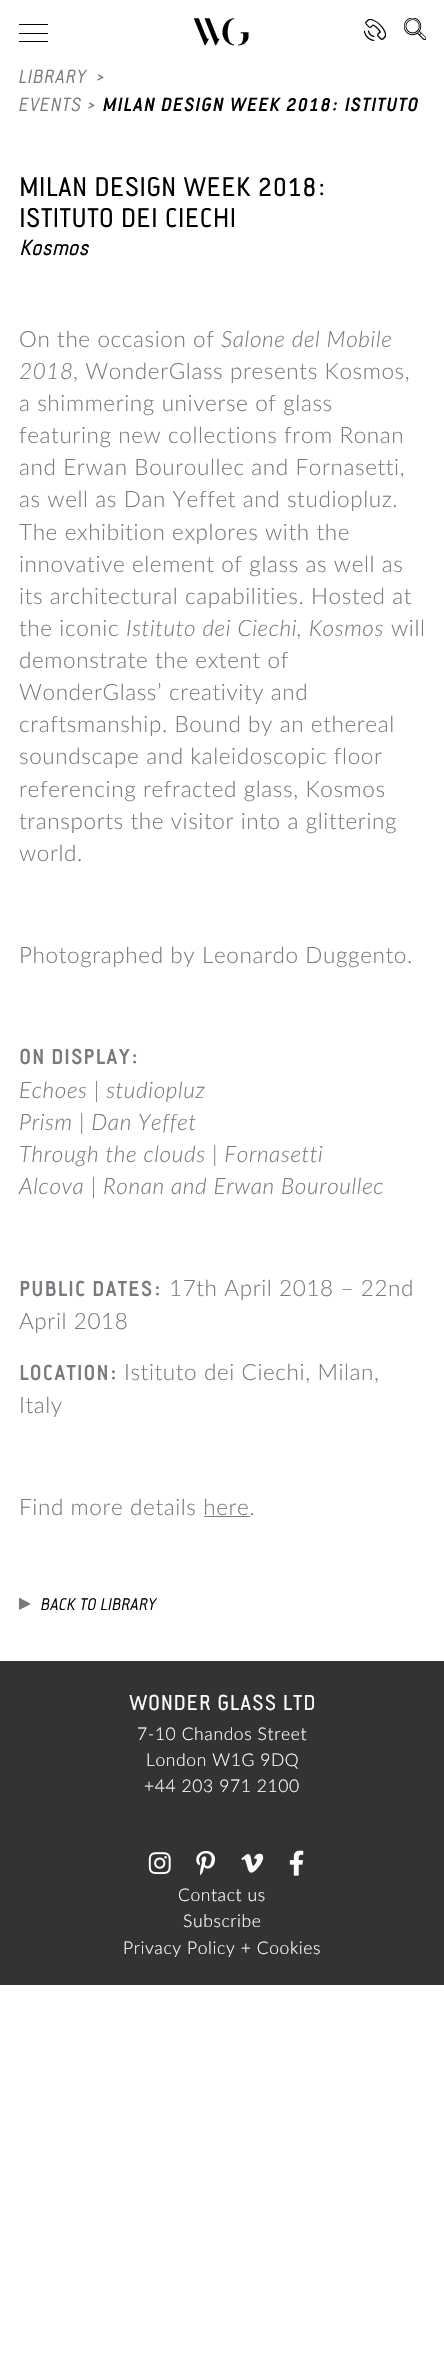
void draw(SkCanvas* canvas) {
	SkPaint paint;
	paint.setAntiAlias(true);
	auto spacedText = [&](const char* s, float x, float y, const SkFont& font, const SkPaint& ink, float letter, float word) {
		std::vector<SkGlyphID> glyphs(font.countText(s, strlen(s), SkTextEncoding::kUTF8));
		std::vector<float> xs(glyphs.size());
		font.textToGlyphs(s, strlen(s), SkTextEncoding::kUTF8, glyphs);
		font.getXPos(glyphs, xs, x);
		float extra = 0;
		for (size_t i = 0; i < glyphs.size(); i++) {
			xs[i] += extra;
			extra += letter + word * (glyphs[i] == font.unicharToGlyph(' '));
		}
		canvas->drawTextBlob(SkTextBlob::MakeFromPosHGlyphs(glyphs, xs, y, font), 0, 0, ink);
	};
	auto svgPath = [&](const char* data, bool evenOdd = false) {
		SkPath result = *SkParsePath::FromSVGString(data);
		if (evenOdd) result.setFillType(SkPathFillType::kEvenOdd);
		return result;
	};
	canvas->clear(0xffffffff);
	paint.setColor(0xff000000);
	canvas->drawRect(SkRect::MakeXYWH(19, 41, 29, 1), paint);
	canvas->drawRect(SkRect::MakeXYWH(19, 24, 29, 1), paint);
	canvas->drawRect(SkRect::MakeXYWH(19, 33, 29, 1), paint);
	canvas->drawImageRect(SkImages::DeferredFromEncodedData(SkData::MakeFromFileName("img1.png")), SkRect::MakeXYWH(194, 18, 55, 28), SkSamplingOptions());
	canvas->drawImageRect(SkImages::DeferredFromEncodedData(SkData::MakeFromFileName("img2.png")), SkRect::MakeXYWH(364, 19, 22, 22), SkSamplingOptions());
	canvas->drawImageRect(SkImages::DeferredFromEncodedData(SkData::MakeFromFileName("img3.png")), SkRect::MakeXYWH(404, 18, 22, 22), SkSamplingOptions());
	SkFont f1(fontMgr->matchFamilyStyle("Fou", SkFontStyle(300, SkFontStyle::kNormal_Width, SkFontStyle::kItalic_Slant)), 20);
	f1.setSubpixel(true);
	paint.setColor(0xff797a7e);
	spacedText("LIBRARY", 19, 83, f1, paint, 0.6, 0);
	spacedText(">", 97, 83, f1, paint, 0.6, 0);
	spacedText("EVENTS", 19, 111, f1, paint, 0.6, 0);
	spacedText(">", 88, 111, f1, paint, 0.6, 0);
	SkFont f2(fontMgr->matchFamilyStyle("Fou", SkFontStyle::BoldItalic()), 20);
	f2.setSubpixel(true);
	paint.setColor(0xff000000);
	spacedText("MILAN DESIGN WEEK 2018: ISTITUTO", 103, 111, f2, paint, 0.6, 0);
	SkFont f3(fontMgr->matchFamilyStyle("Fou", SkFontStyle::Normal()), 28.25);
	f3.setSubpixel(true);
	canvas->drawString("MILAN DESIGN WEEK 2018:", 19, 196, f3, paint);
	canvas->drawString("ISTITUTO DEI CIECHI", 19, 227, f3, paint);
	SkFont f4(fontMgr->matchFamilyStyle("Fou", SkFontStyle::Italic()), 23);
	f4.setSubpixel(true);
	canvas->drawString("Kosmos", 19, 255, f4, paint);
	SkFont f5(fontMgr->matchFamilyStyle("Lato", SkFontStyle(300, SkFontStyle::kNormal_Width, SkFontStyle::kUpright_Slant)), 22.5);
	f5.setSubpixel(true);
	paint.setColor(0xff797a7e);
	spacedText("On the occasion of", 19, 347, f5, paint, 0.6, 0);
	SkFont f6(fontMgr->matchFamilyStyle("Lato", SkFontStyle(300, SkFontStyle::kNormal_Width, SkFontStyle::kItalic_Slant)), 22.5);
	f6.setSubpixel(true);
	spacedText("Salone del Mobile", 221, 347, f6, paint, 0.6, 0);
	spacedText("2018", 19, 379, f6, paint, 0.6, 0);
	spacedText(", WonderGlass presents Kosmos,", 73, 379, f5, paint, 0.6, 0);
	spacedText("a shimmering universe of glass", 19, 411, f5, paint, 0.6, 0);
	spacedText("featuring new collections from Ronan", 19, 443, f5, paint, 0.6, 0);
	spacedText("and Erwan Bouroullec and Fornasetti,", 19, 475, f5, paint, 0.6, 0);
	spacedText("as well as Dan Yeffet and studiopluz.", 19, 507, f5, paint, 0.6, 0);
	spacedText("The exhibition explores with the", 19, 540, f5, paint, 0.6, 0);
	spacedText("innovative element of glass as well as", 19, 572, f5, paint, 0.6, 0);
	spacedText("its architectural capabilities. Hosted at", 19, 604, f5, paint, 0.6, 0);
	spacedText("the iconic", 19, 636, f5, paint, 0.6, 0);
	spacedText("Istituto dei Ciechi, Kosmos", 126, 636, f6, paint, 0.6, 0);
	spacedText("will", 391, 636, f5, paint, 0.6, 0);
	spacedText("demonstrate the extent of", 19, 668, f5, paint, 0.6, 0);
	spacedText("WonderGlass’ creativity and", 19, 700, f5, paint, 0.6, 0);
	spacedText("craftsmanship. Bound by an ethereal", 19, 732, f5, paint, 0.6, 0);
	spacedText("soundscape and kaleidoscopic floor", 19, 764, f5, paint, 0.6, 0);
	spacedText("referencing refracted glass, Kosmos", 19, 797, f5, paint, 0.6, 0);
	spacedText("transports the visitor into a glittering", 19, 829, f5, paint, 0.6, 0);
	spacedText("world.", 19, 861, f5, paint, 0.6, 0);
	spacedText("Photographed by Leonardo Duggento.", 19, 963, f5, paint, 0.6, 0);
	SkFont f7(fontMgr->matchFamilyStyle("Fou", SkFontStyle::Bold()), 22.5);
	f7.setSubpixel(true);
	spacedText("ON DISPLAY:", 19, 1064, f7, paint, 0.6, 0);
	spacedText("Echoes | studiopluz", 19, 1098, f6, paint, 0.6, 0);
	spacedText("Prism | Dan Yeffet", 19, 1130, f6, paint, 0.6, 0);
	spacedText("Through the clouds | Fornasetti", 19, 1162, f6, paint, 0.6, 0);
	spacedText("Alcova | Ronan and Erwan Bouroullec", 19, 1194, f6, paint, 0.6, 0);
	spacedText("PUBLIC DATES:", 19, 1296, f7, paint, 0.6, 0);
	spacedText("17th April 2018 – 22nd", 169, 1296, f5, paint, 0.6, 0);
	spacedText("April 2018", 19, 1329, f5, paint, 0.6, 0);
	spacedText("LOCATION:", 19, 1380, f7, paint, 0.6, 0);
	spacedText("Istituto dei Ciechi, Milan,", 124, 1380, f5, paint, 0.6, 0);
	spacedText("Italy", 19, 1413, f5, paint, 0.6, 0);
	spacedText("Find more details here.", 19, 1515, f5, paint, 0.6, 0);
	canvas->drawRect(SkRect::MakeXYWH(204, 1516, 46, 1), paint);
	canvas->drawPath(svgPath("M19 1610V1597.5L31 1604Z"), paint);
	SkFont f8(fontMgr->matchFamilyStyle("Fou", SkFontStyle(300, SkFontStyle::kNormal_Width, SkFontStyle::kItalic_Slant)), 17.5);
	f8.setSubpixel(true);
	paint.setColor(0xff000000);
	canvas->drawString("BACK TO LIBRARY", 41, 1610, f8, paint);
	paint.setColor(0xff333333);
	canvas->drawRect(SkRect::MakeXYWH(0, 1661, 444, 324), paint);
	SkFont f9(fontMgr->matchFamilyStyle("Fou", SkFontStyle::Normal()), 22.5);
	f9.setSubpixel(true);
	paint.setColor(0xffffffff);
	spacedText("WONDER GLASS LTD", 129, 1710, f9, paint, 0.6, 0);
	SkFont f10(fontMgr->matchFamilyStyle("Lato", SkFontStyle(300, SkFontStyle::kNormal_Width, SkFontStyle::kUpright_Slant)), 17.5);
	f10.setSubpixel(true);
	spacedText("7-10 Chandos Street", 137, 1740, f10, paint, 0.6, 0);
	spacedText("London W1G 9DQ", 146, 1766, f10, paint, 0.6, 0);
	spacedText("+44 203 971 2100", 144, 1792, f10, paint, 0.6, 0);
	canvas->drawImageRect(SkImages::DeferredFromEncodedData(SkData::MakeFromFileName("img4.png")), SkRect::MakeXYWH(148, 1852, 23, 23), SkSamplingOptions());
	canvas->drawImageRect(SkImages::DeferredFromEncodedData(SkData::MakeFromFileName("img5.png")), SkRect::MakeXYWH(196, 1850, 19, 26), SkSamplingOptions());
	canvas->drawImageRect(SkImages::DeferredFromEncodedData(SkData::MakeFromFileName("img6.png")), SkRect::MakeXYWH(241, 1853, 23, 20), SkSamplingOptions());
	canvas->drawImageRect(SkImages::DeferredFromEncodedData(SkData::MakeFromFileName("img7.png")), SkRect::MakeXYWH(289, 1850, 15, 26), SkSamplingOptions());
	spacedText("Contact us", 178, 1901, f10, paint, 0.6, 0);
	spacedText("Subscribe", 183, 1927, f10, paint, 0.6, 0);
	spacedText("Privacy Policy + Cookies", 123, 1954, f10, paint, 0.6, 0);
}
